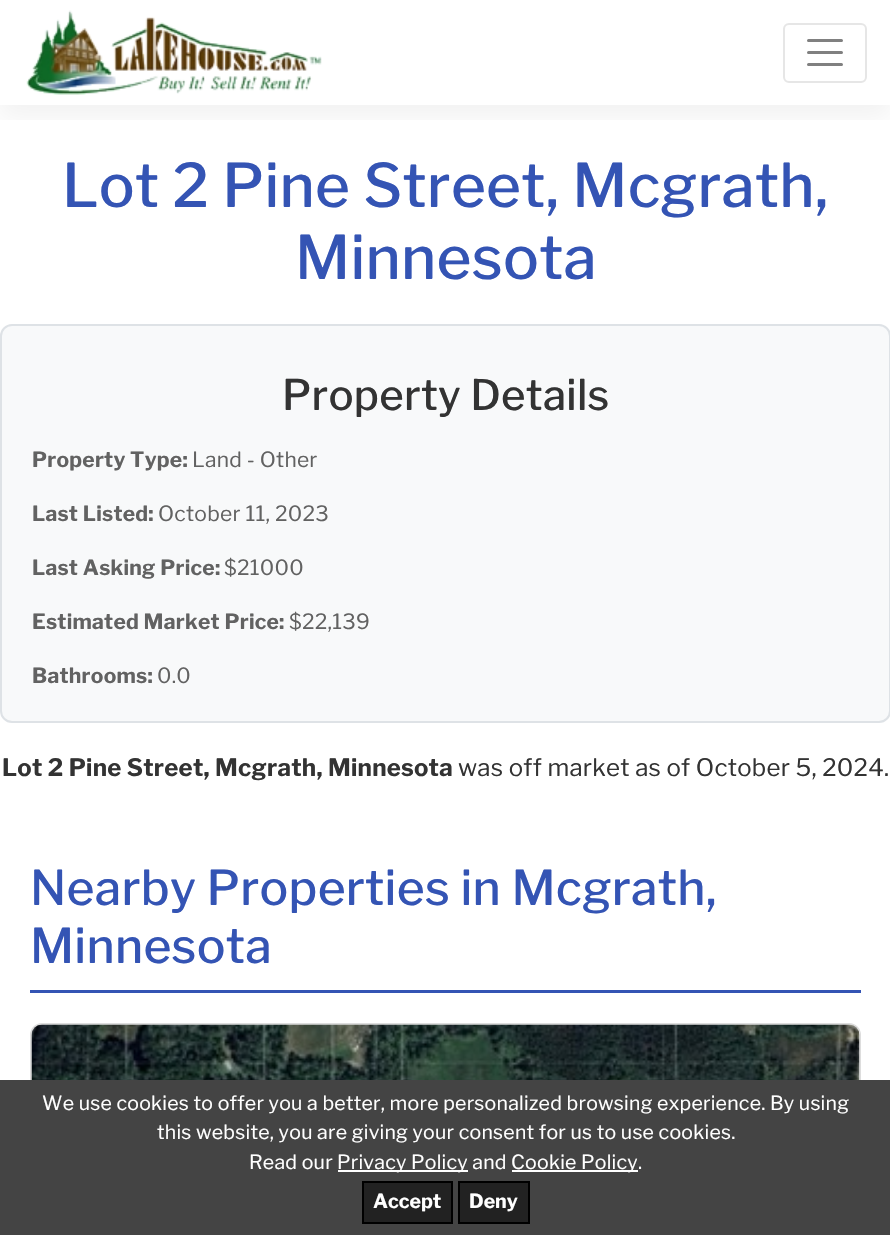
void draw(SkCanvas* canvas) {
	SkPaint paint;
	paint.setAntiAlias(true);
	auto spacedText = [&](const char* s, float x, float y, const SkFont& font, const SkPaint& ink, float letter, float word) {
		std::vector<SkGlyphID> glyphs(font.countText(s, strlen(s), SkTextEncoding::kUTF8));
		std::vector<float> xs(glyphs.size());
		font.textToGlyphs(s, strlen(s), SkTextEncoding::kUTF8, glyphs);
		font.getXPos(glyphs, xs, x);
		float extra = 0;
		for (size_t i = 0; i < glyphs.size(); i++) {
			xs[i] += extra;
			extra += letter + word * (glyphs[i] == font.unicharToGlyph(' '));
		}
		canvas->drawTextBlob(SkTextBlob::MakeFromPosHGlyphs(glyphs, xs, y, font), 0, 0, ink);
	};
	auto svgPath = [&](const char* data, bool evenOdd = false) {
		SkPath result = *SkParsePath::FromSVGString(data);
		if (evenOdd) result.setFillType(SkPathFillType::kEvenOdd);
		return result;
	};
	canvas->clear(0xffffffff);
	canvas->save();
	canvas->clipRect(SkRect::MakeXYWH(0, 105, 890, 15));
	paint.setColor(0x0d000000);
	paint.setMaskFilter(SkMaskFilter::MakeBlur(kNormal_SkBlurStyle, 12));
	canvas->drawRect(SkRect::MakeXYWH(0, 12, 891, 105), paint);
	paint.setMaskFilter(nullptr);
	canvas->restore();
	canvas->drawImageRect(SkImages::DeferredFromEncodedData(SkData::MakeFromFileName("img1.png")), SkRect::MakeXYWH(26, 10, 296, 85), SkSamplingOptions());
	paint.setStroke(true);
	paint.setStrokeWidth(2);
	paint.setColor(0xffe6e6e6);
	canvas->drawRoundRect(SkRect::MakeXYWH(784, 24, 82, 58), 5, 5, paint);
	paint.setStrokeWidth(3);
	paint.setStrokeCap(SkPaint::kRound_Cap);
	paint.setColor(0xff808080);
	canvas->drawPath(svgPath("M808.5 40.5H841.5M808.5 52.5H841.5M808.5 64.5H841.5"), paint);
	SkFont f1(fontMgr->matchFamilyStyle("Libre Franklin", SkFontStyle(500, SkFontStyle::kNormal_Width, SkFontStyle::kUpright_Slant)), 60);
	f1.setSubpixel(true);
	paint.setStroke(false);
	paint.setColor(0xff3454b4);
	spacedText("Lot 2 Pine Street, Mcgrath,", 62, 207, f1, paint, 0.25, 0);
	spacedText("Minnesota", 295, 279, f1, paint, 0.25, 0);
	paint.setColor(0xfff8f9fa);
	canvas->drawRoundRect(SkRect::MakeXYWH(1, 325, 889, 397), 11, 11, paint);
	paint.setStroke(true);
	paint.setStrokeWidth(2);
	paint.setStrokeCap(SkPaint::kButt_Cap);
	paint.setColor(0xffdee2e6);
	canvas->drawRoundRect(SkRect::MakeXYWH(1, 325, 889, 397), 11, 11, paint);
	SkFont f2(fontMgr->matchFamilyStyle("Libre Franklin", SkFontStyle(500, SkFontStyle::kNormal_Width, SkFontStyle::kUpright_Slant)), 42);
	f2.setSubpixel(true);
	paint.setStroke(false);
	paint.setColor(0xff333333);
	spacedText("Property Details", 282, 410, f2, paint, 0.25, 0);
	SkFont f3(fontMgr->matchFamilyStyle("Libre Franklin", SkFontStyle::Bold()), 21);
	f3.setSubpixel(true);
	paint.setColor(0xff626262);
	spacedText("Property Type:", 32, 467, f3, paint, 0.25, 0);
	SkFont f4(fontMgr->matchFamilyStyle("Libre Franklin", SkFontStyle::Normal()), 21);
	f4.setSubpixel(true);
	spacedText("Land - Other", 192, 467, f4, paint, 0.25, 0);
	spacedText("Last Listed:", 32, 521, f3, paint, 0.25, 0);
	spacedText("October 11, 2023", 158, 521, f4, paint, 0.25, 0);
	spacedText("Last Asking Price:", 32, 575, f3, paint, 0.25, 0);
	spacedText("$21000", 224, 575, f4, paint, 0.25, 0);
	spacedText("Estimated Market Price:", 32, 629, f3, paint, 0.25, 0);
	spacedText("$22,139", 289, 629, f4, paint, 0.25, 0);
	spacedText("Bathrooms:", 32, 683, f3, paint, 0.25, 0);
	spacedText("0.0", 157, 683, f4, paint, 0.25, 0);
	SkFont f5(fontMgr->matchFamilyStyle("Libre Franklin", SkFontStyle::Bold()), 24);
	f5.setSubpixel(true);
	paint.setColor(0xff333333);
	spacedText("Lot 2 Pine Street, Mcgrath, Minnesota", 2, 776, f5, paint, 0.25, 0);
	SkFont f6(fontMgr->matchFamilyStyle("Libre Franklin", SkFontStyle::Normal()), 24);
	f6.setSubpixel(true);
	spacedText("was off market as of October 5, 2024.", 458, 776, f6, paint, 0.25, 0);
	paint.setColor(0xff3454b4);
	canvas->drawRect(SkRect::MakeXYWH(30, 990, 831, 3), paint);
	SkFont f7(fontMgr->matchFamilyStyle("Libre Franklin", SkFontStyle(500, SkFontStyle::kNormal_Width, SkFontStyle::kUpright_Slant)), 48);
	f7.setSubpixel(true);
	spacedText("Nearby Properties in Mcgrath,", 30, 905, f7, paint, 0.25, 0);
	spacedText("Minnesota", 30, 963, f7, paint, 0.25, 0);
	paint.setStroke(true);
	paint.setColor(0xffdddddd);
	canvas->drawRoundRect(SkRect::MakeXYWH(31, 1024, 829, 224), 11, 11, paint);
	paint.setStroke(false);
	paint.setColor(0xfff0f0f0);
	canvas->drawPath(svgPath("M43 1025H849C855 1025 860 1030 860 1036V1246H32V1036C32 1030 37 1025 43 1025Z"), paint);
	canvas->drawImageRect(SkImages::DeferredFromEncodedData(SkData::MakeFromFileName("img2.png")), SkRect::MakeXYWH(31, 1024, 829, 56), SkSamplingOptions());
	paint.setColor(0xff444444);
	canvas->drawRect(SkRect::MakeXYWH(0, 1080, 890, 155), paint);
	SkFont f8(fontMgr->matchFamilyStyle("Libre Franklin", SkFontStyle::Normal()), 19.5);
	f8.setSubpixel(true);
	paint.setColor(0xffffffff);
	spacedText("We use cookies to offer you a better, more personalized browsing experience. By using", 42, 1110, f8, paint, 0.25, 0);
	spacedText("this website, you are giving your consent for us to use cookies.", 157, 1139, f8, paint, 0.25, 0);
	spacedText("Read our", 249, 1169, f8, paint, 0.25, 0);
	canvas->drawRect(SkRect::MakeXYWH(338, 1170, 130, 2), paint);
	spacedText("Privacy Policy and", 337, 1169, f8, paint, 0.25, 0);
	canvas->drawRect(SkRect::MakeXYWH(512, 1170, 126, 2), paint);
	spacedText("Cookie Policy.", 511, 1169, f8, paint, 0.25, 0);
	paint.setColor(0xff222222);
	canvas->drawRect(SkRect::MakeXYWH(363, 1182, 89, 41), paint);
	paint.setStroke(true);
	paint.setColor(0xff000000);
	canvas->drawRect(SkRect::MakeXYWH(363, 1182, 89, 41), paint);
	SkFont f9(fontMgr->matchFamilyStyle("Libre Franklin", SkFontStyle::Bold()), 19.5);
	f9.setSubpixel(true);
	paint.setStroke(false);
	paint.setColor(0xffffffff);
	canvas->drawString("Accept", 373, 1208, f9, paint);
	paint.setColor(0xff222222);
	canvas->drawRect(SkRect::MakeXYWH(459, 1182, 70, 41), paint);
	paint.setStroke(true);
	paint.setColor(0xff000000);
	canvas->drawRect(SkRect::MakeXYWH(459, 1182, 70, 41), paint);
	paint.setStroke(false);
	paint.setColor(0xffffffff);
	canvas->drawString("Deny", 469, 1208, f9, paint);
}
